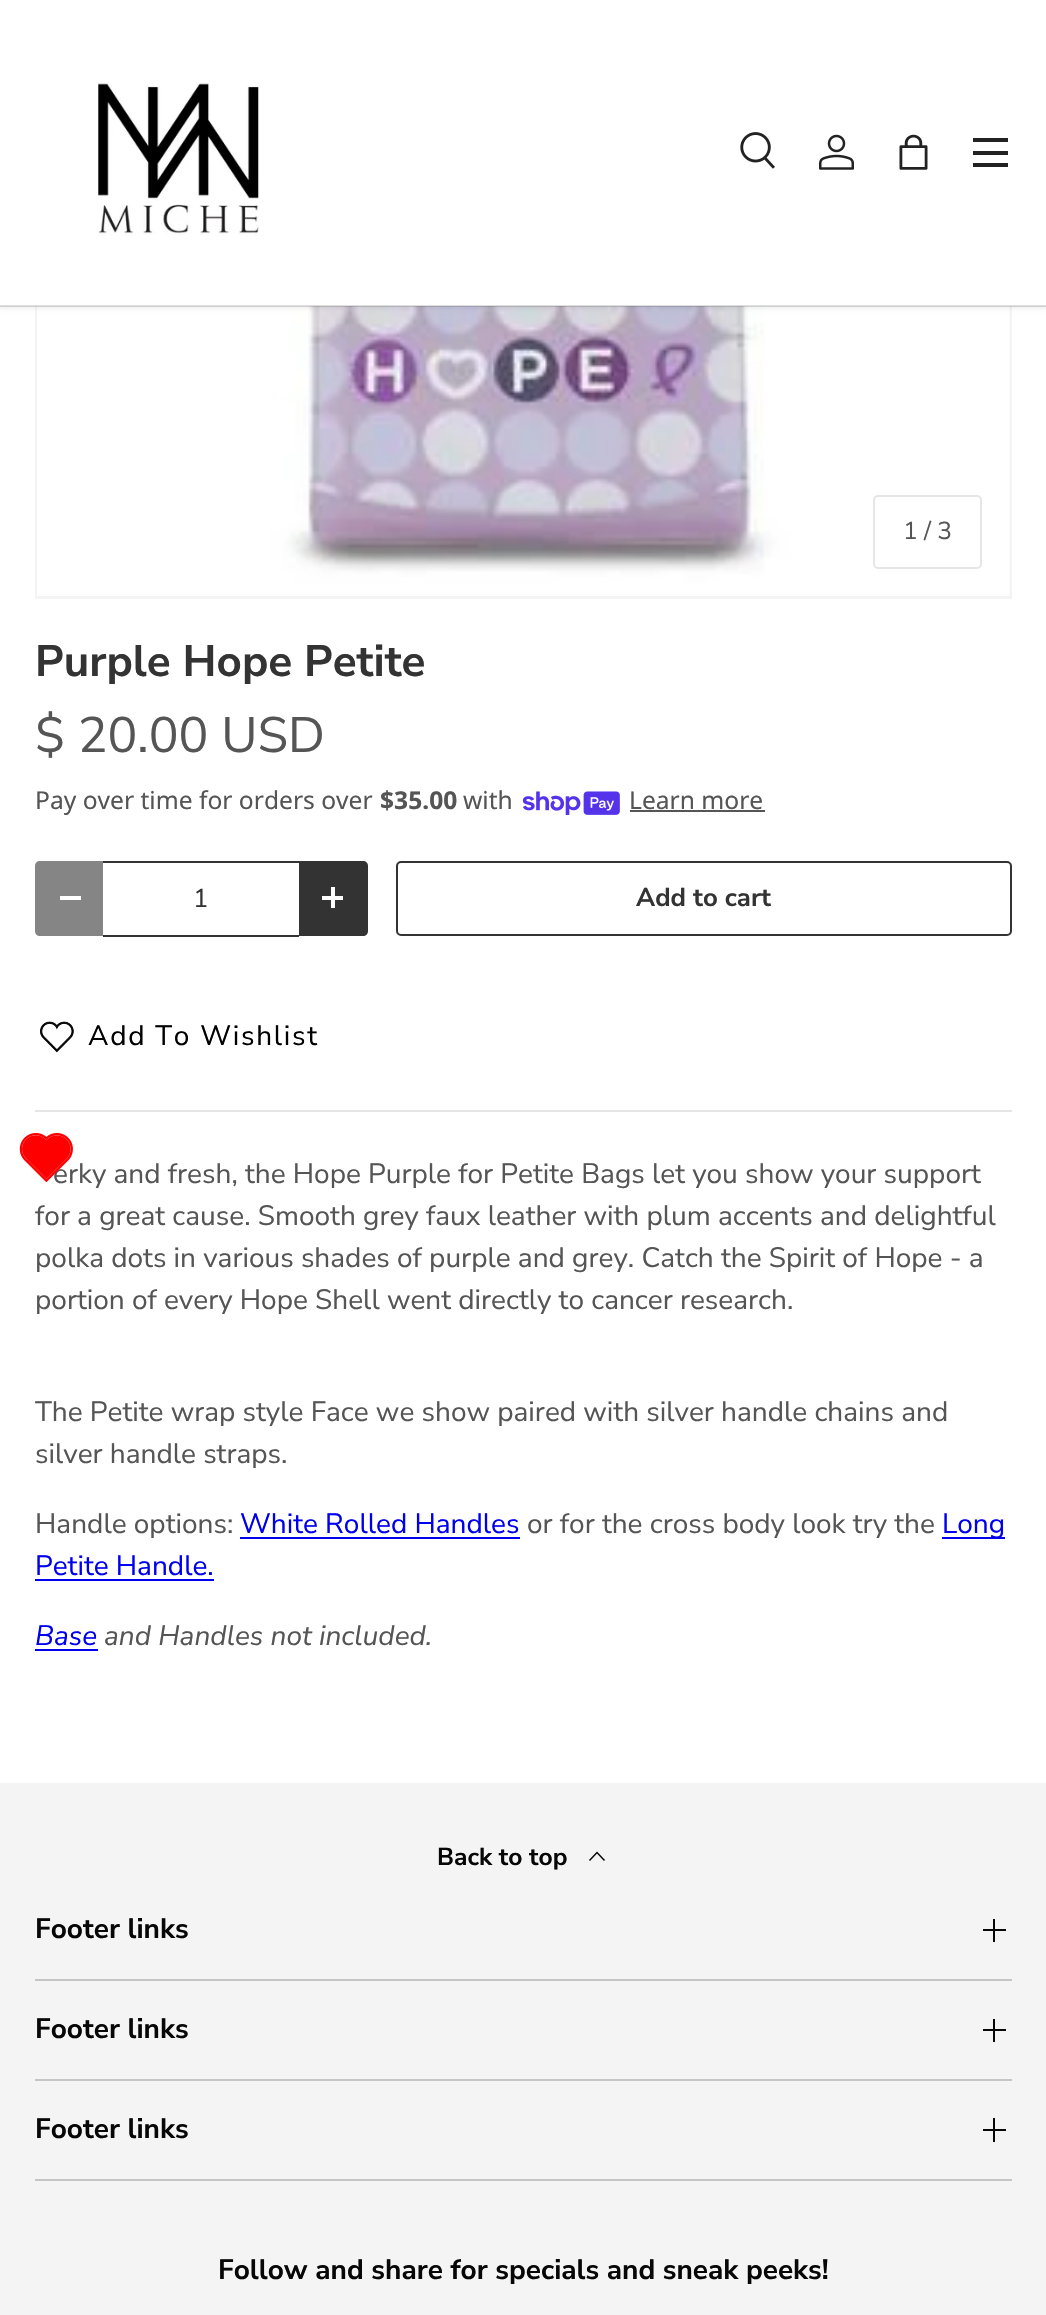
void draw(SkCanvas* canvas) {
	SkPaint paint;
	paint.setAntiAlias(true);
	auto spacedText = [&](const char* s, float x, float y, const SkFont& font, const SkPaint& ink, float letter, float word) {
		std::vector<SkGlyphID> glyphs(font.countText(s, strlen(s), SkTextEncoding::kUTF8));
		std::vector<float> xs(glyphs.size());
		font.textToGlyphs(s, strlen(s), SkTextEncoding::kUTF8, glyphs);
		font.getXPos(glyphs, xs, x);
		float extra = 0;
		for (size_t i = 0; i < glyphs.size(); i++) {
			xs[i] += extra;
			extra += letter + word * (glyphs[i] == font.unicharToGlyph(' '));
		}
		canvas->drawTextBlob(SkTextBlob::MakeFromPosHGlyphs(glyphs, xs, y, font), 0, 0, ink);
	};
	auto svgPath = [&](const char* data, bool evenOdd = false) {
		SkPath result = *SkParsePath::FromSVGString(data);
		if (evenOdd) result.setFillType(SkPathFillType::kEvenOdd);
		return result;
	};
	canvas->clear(0xffffffff);
	paint.setColor(0xfff4f4f4);
	canvas->drawRect(SkRect::MakeXYWH(35, 306, 977, 293), paint);
	canvas->drawImageRect(SkImages::DeferredFromEncodedData(SkData::MakeFromFileName("img5.png")), SkRect::MakeXYWH(37, 306, 973, 290), SkSamplingOptions());
	paint.setColor(0x14000000);
	paint.setMaskFilter(SkMaskFilter::MakeBlur(kNormal_SkBlurStyle, 2.5));
	canvas->drawRect(SkRect::MakeXYWH(-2, -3, 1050, 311), paint);
	paint.setMaskFilter(nullptr);
	paint.setColor(0xffffffff);
	canvas->drawRect(SkRect::MakeXYWH(0, 0, 1046, 306), paint);
	canvas->drawImageRect(SkImages::DeferredFromEncodedData(SkData::MakeFromFileName("img1.png")), SkRect::MakeXYWH(98, 82, 161, 154), SkSamplingOptions());
	canvas->drawImageRect(SkImages::DeferredFromEncodedData(SkData::MakeFromFileName("img2.png")), SkRect::MakeXYWH(740, 132, 35, 37), SkSamplingOptions());
	canvas->drawImageRect(SkImages::DeferredFromEncodedData(SkData::MakeFromFileName("img3.png")), SkRect::MakeXYWH(819, 134, 35, 36), SkSamplingOptions());
	canvas->drawImageRect(SkImages::DeferredFromEncodedData(SkData::MakeFromFileName("img4.png")), SkRect::MakeXYWH(899, 134, 29, 36), SkSamplingOptions());
	paint.setColor(0xff222222);
	canvas->drawRect(SkRect::MakeXYWH(973, 138, 35, 4), paint);
	canvas->drawRect(SkRect::MakeXYWH(973, 163, 35, 4), paint);
	canvas->drawRect(SkRect::MakeXYWH(973, 151, 35, 4), paint);
	paint.setColor(0x26222222);
	canvas->drawRect(SkRect::MakeXYWH(0, 305, 1046, 2), paint);
	paint.setStroke(true);
	paint.setStrokeWidth(2);
	paint.setColor(0xffe6e6e6);
	canvas->drawRoundRect(SkRect::MakeXYWH(874, 496, 107, 72), 4, 4, paint);
	SkFont f1(fontMgr->matchFamilyStyle("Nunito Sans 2", SkFontStyle(200, SkFontStyle::kNormal_Width, SkFontStyle::kUpright_Slant)), 24.6);
	f1.setSubpixel(true);
	paint.setStroke(false);
	paint.setColor(0xff555555);
	canvas->drawString("1 / 3", 903, 539, f1, paint);
	SkFont f2(fontMgr->matchFamilyStyle("Nunito Sans", SkFontStyle(200, SkFontStyle::kNormal_Width, SkFontStyle::kUpright_Slant)), 44);
	f2.setSubpixel(true);
	paint.setColor(0xff333333);
	canvas->drawString("Purple Hope Petite", 35, 676, f2, paint);
	SkFont f3(fontMgr->matchFamilyStyle("Nunito Sans 2", SkFontStyle(200, SkFontStyle::kNormal_Width, SkFontStyle::kUpright_Slant)), 49.75);
	f3.setSubpixel(true);
	paint.setColor(0xff555555);
	canvas->drawString("$ 20.00 USD", 35, 752, f3, paint);
	SkFont f4(fontMgr->matchFamilyStyle("Noto Sans", SkFontStyle::Normal()), 24.6);
	f4.setSubpixel(true);
	canvas->drawString("Pay over time for orders over", 35, 809, f4, paint);
	SkFont f5(fontMgr->matchFamilyStyle("Noto Sans", SkFontStyle::Bold()), 24.6);
	f5.setSubpixel(true);
	canvas->drawString("$35.00", 380, 809, f5, paint);
	canvas->drawString("with", 463, 809, f4, paint);
	canvas->drawImageRect(SkImages::DeferredFromEncodedData(SkData::MakeFromFileName("img6.png")), SkRect::MakeXYWH(522, 791, 98, 24), SkSamplingOptions());
	canvas->drawString("Learn more", 629, 809, f4, paint);
	canvas->drawRect(SkRect::MakeXYWH(630, 810, 135, 2), paint);
	paint.setColor(0xff858585);
	canvas->drawPath(svgPath("M40 861H103V936H40C37 936 35 934 35 931V866C35 863 37 861 40 861Z"), paint);
	paint.setColor(0xffffffff);
	canvas->drawRect(SkRect::MakeXYWH(60, 896, 21, 4), paint);
	paint.setColor(0xff333333);
	canvas->drawRect(SkRect::MakeXYWH(103, 935, 196, 2), paint);
	canvas->drawRect(SkRect::MakeXYWH(103, 861, 196, 2), paint);
	SkFont f6(fontMgr->matchFamilyStyle("Nunito Sans 2", SkFontStyle(200, SkFontStyle::kNormal_Width, SkFontStyle::kUpright_Slant)), 25.75);
	f6.setSubpixel(true);
	canvas->drawString("1", 193, 907, f6, paint);
	canvas->drawPath(svgPath("M299 861H363C366 861 368 863 368 866V931C368 934 366 936 363 936H299Z"), paint);
	paint.setColor(0xffffffff);
	canvas->drawRect(SkRect::MakeXYWH(322, 896, 21, 4), paint);
	canvas->drawRect(SkRect::MakeXYWH(331, 887, 4, 21), paint);
	paint.setStroke(true);
	paint.setColor(0xff333333);
	canvas->drawRoundRect(SkRect::MakeXYWH(397, 862, 614, 73), 4, 4, paint);
	SkFont f7(fontMgr->matchFamilyStyle("Nunito Sans", SkFontStyle(200, SkFontStyle::kNormal_Width, SkFontStyle::kUpright_Slant)), 25.75);
	f7.setSubpixel(true);
	paint.setStroke(false);
	canvas->drawString("Add to cart", 636, 906, f7, paint);
	canvas->drawImageRect(SkImages::DeferredFromEncodedData(SkData::MakeFromFileName("img7.png")), SkRect::MakeXYWH(40, 1021, 34, 32), SkSamplingOptions());
	SkFont f8(fontMgr->matchFamilyStyle("Nunito Sans 2", SkFontStyle(200, SkFontStyle::kNormal_Width, SkFontStyle::kUpright_Slant)), 28);
	f8.setSubpixel(true);
	paint.setColor(0xff000000);
	spacedText("Add To Wishlist", 88, 1045, f8, paint, 1.75, 0);
	paint.setColor(0xffe6e6e6);
	canvas->drawRect(SkRect::MakeXYWH(35, 1110, 977, 2), paint);
	paint.setColor(0xff555555);
	canvas->drawString("erky and fresh, the Hope Purple for Petite Bags let you show your support", 53, 1183, f8, paint);
	canvas->drawString("for a great cause. Smooth grey faux leather with plum accents and delightful", 35, 1225, f8, paint);
	canvas->drawString("polka dots in various shades of purple and grey. Catch the Spirit of Hope - a", 35, 1267, f8, paint);
	canvas->drawString("portion of every Hope Shell went directly to cancer research.", 35, 1309, f8, paint);
	canvas->drawString("The Petite wrap style Face we show paired with silver handle chains and", 35, 1421, f8, paint);
	canvas->drawString("silver handle straps.", 35, 1463, f8, paint);
	canvas->drawString("Handle options:", 35, 1533, f8, paint);
	paint.setColor(0xff0000ee);
	canvas->drawString("White Rolled Handles", 240, 1533, f8, paint);
	canvas->drawRect(SkRect::MakeXYWH(240, 1537, 280, 2), paint);
	paint.setColor(0xff555555);
	canvas->drawString("or for the cross body look try the", 527, 1533, f8, paint);
	paint.setColor(0xff0000ee);
	canvas->drawRect(SkRect::MakeXYWH(942, 1537, 63, 2), paint);
	canvas->drawString("Long", 942, 1533, f8, paint);
	canvas->drawString("Petite Handle.", 35, 1575, f8, paint);
	canvas->drawRect(SkRect::MakeXYWH(35, 1579, 179, 2), paint);
	SkFont f9(fontMgr->matchFamilyStyle("Nunito Sans", SkFontStyle::Italic()), 28);
	f9.setSubpixel(true);
	canvas->drawString("Base", 35, 1645, f9, paint);
	canvas->drawRect(SkRect::MakeXYWH(35, 1649, 63, 2), paint);
	paint.setColor(0xff555555);
	canvas->drawString("and Handles not included.", 104, 1645, f9, paint);
	canvas->drawImageRect(SkImages::DeferredFromEncodedData(SkData::MakeFromFileName("img8.png")), SkRect::MakeXYWH(19, 1132, 54, 51), SkSamplingOptions());
	paint.setColor(0xfff4f4f4);
	canvas->drawRect(SkRect::MakeXYWH(0, 1783, 1046, 532), paint);
	SkFont f10(fontMgr->matchFamilyStyle("Nunito Sans", SkFontStyle(200, SkFontStyle::kNormal_Width, SkFontStyle::kUpright_Slant)), 24.6);
	f10.setSubpixel(true);
	paint.setColor(0xff070707);
	canvas->drawString("Back to top", 437, 1865, f10, paint);
	paint.setStroke(true);
	paint.setStrokeWidth(1.5);
	canvas->drawPath(svgPath("M589.5 1860.5L597 1852.5L604.5 1860.5"), paint);
	paint.setStroke(false);
	paint.setColor(0xffc5c5c5);
	canvas->drawRect(SkRect::MakeXYWH(35, 1979, 977, 2), paint);
	SkFont f11(fontMgr->matchFamilyStyle("Nunito Sans", SkFontStyle(200, SkFontStyle::kNormal_Width, SkFontStyle::kUpright_Slant)), 28);
	f11.setSubpixel(true);
	paint.setColor(0xff070707);
	canvas->drawString("Footer links", 35, 1938, f11, paint);
	canvas->drawImageRect(SkImages::DeferredFromEncodedData(SkData::MakeFromFileName("img9.png")), SkRect::MakeXYWH(983, 1919, 23, 23), SkSamplingOptions());
	paint.setColor(0xffc5c5c5);
	canvas->drawRect(SkRect::MakeXYWH(35, 2079, 977, 2), paint);
	paint.setColor(0xff070707);
	canvas->drawString("Footer links", 35, 2038, f11, paint);
	canvas->drawImageRect(SkImages::DeferredFromEncodedData(SkData::MakeFromFileName("img9.png")), SkRect::MakeXYWH(983, 2019, 23, 23), SkSamplingOptions());
	paint.setColor(0xffc5c5c5);
	canvas->drawRect(SkRect::MakeXYWH(35, 2179, 977, 2), paint);
	paint.setColor(0xff070707);
	canvas->drawString("Footer links", 35, 2138, f11, paint);
	canvas->drawImageRect(SkImages::DeferredFromEncodedData(SkData::MakeFromFileName("img10.png")), SkRect::MakeXYWH(983, 2118, 23, 24), SkSamplingOptions());
	canvas->drawString("Follow and share for specials and sneak peeks!", 218, 2279, f11, paint);
}
